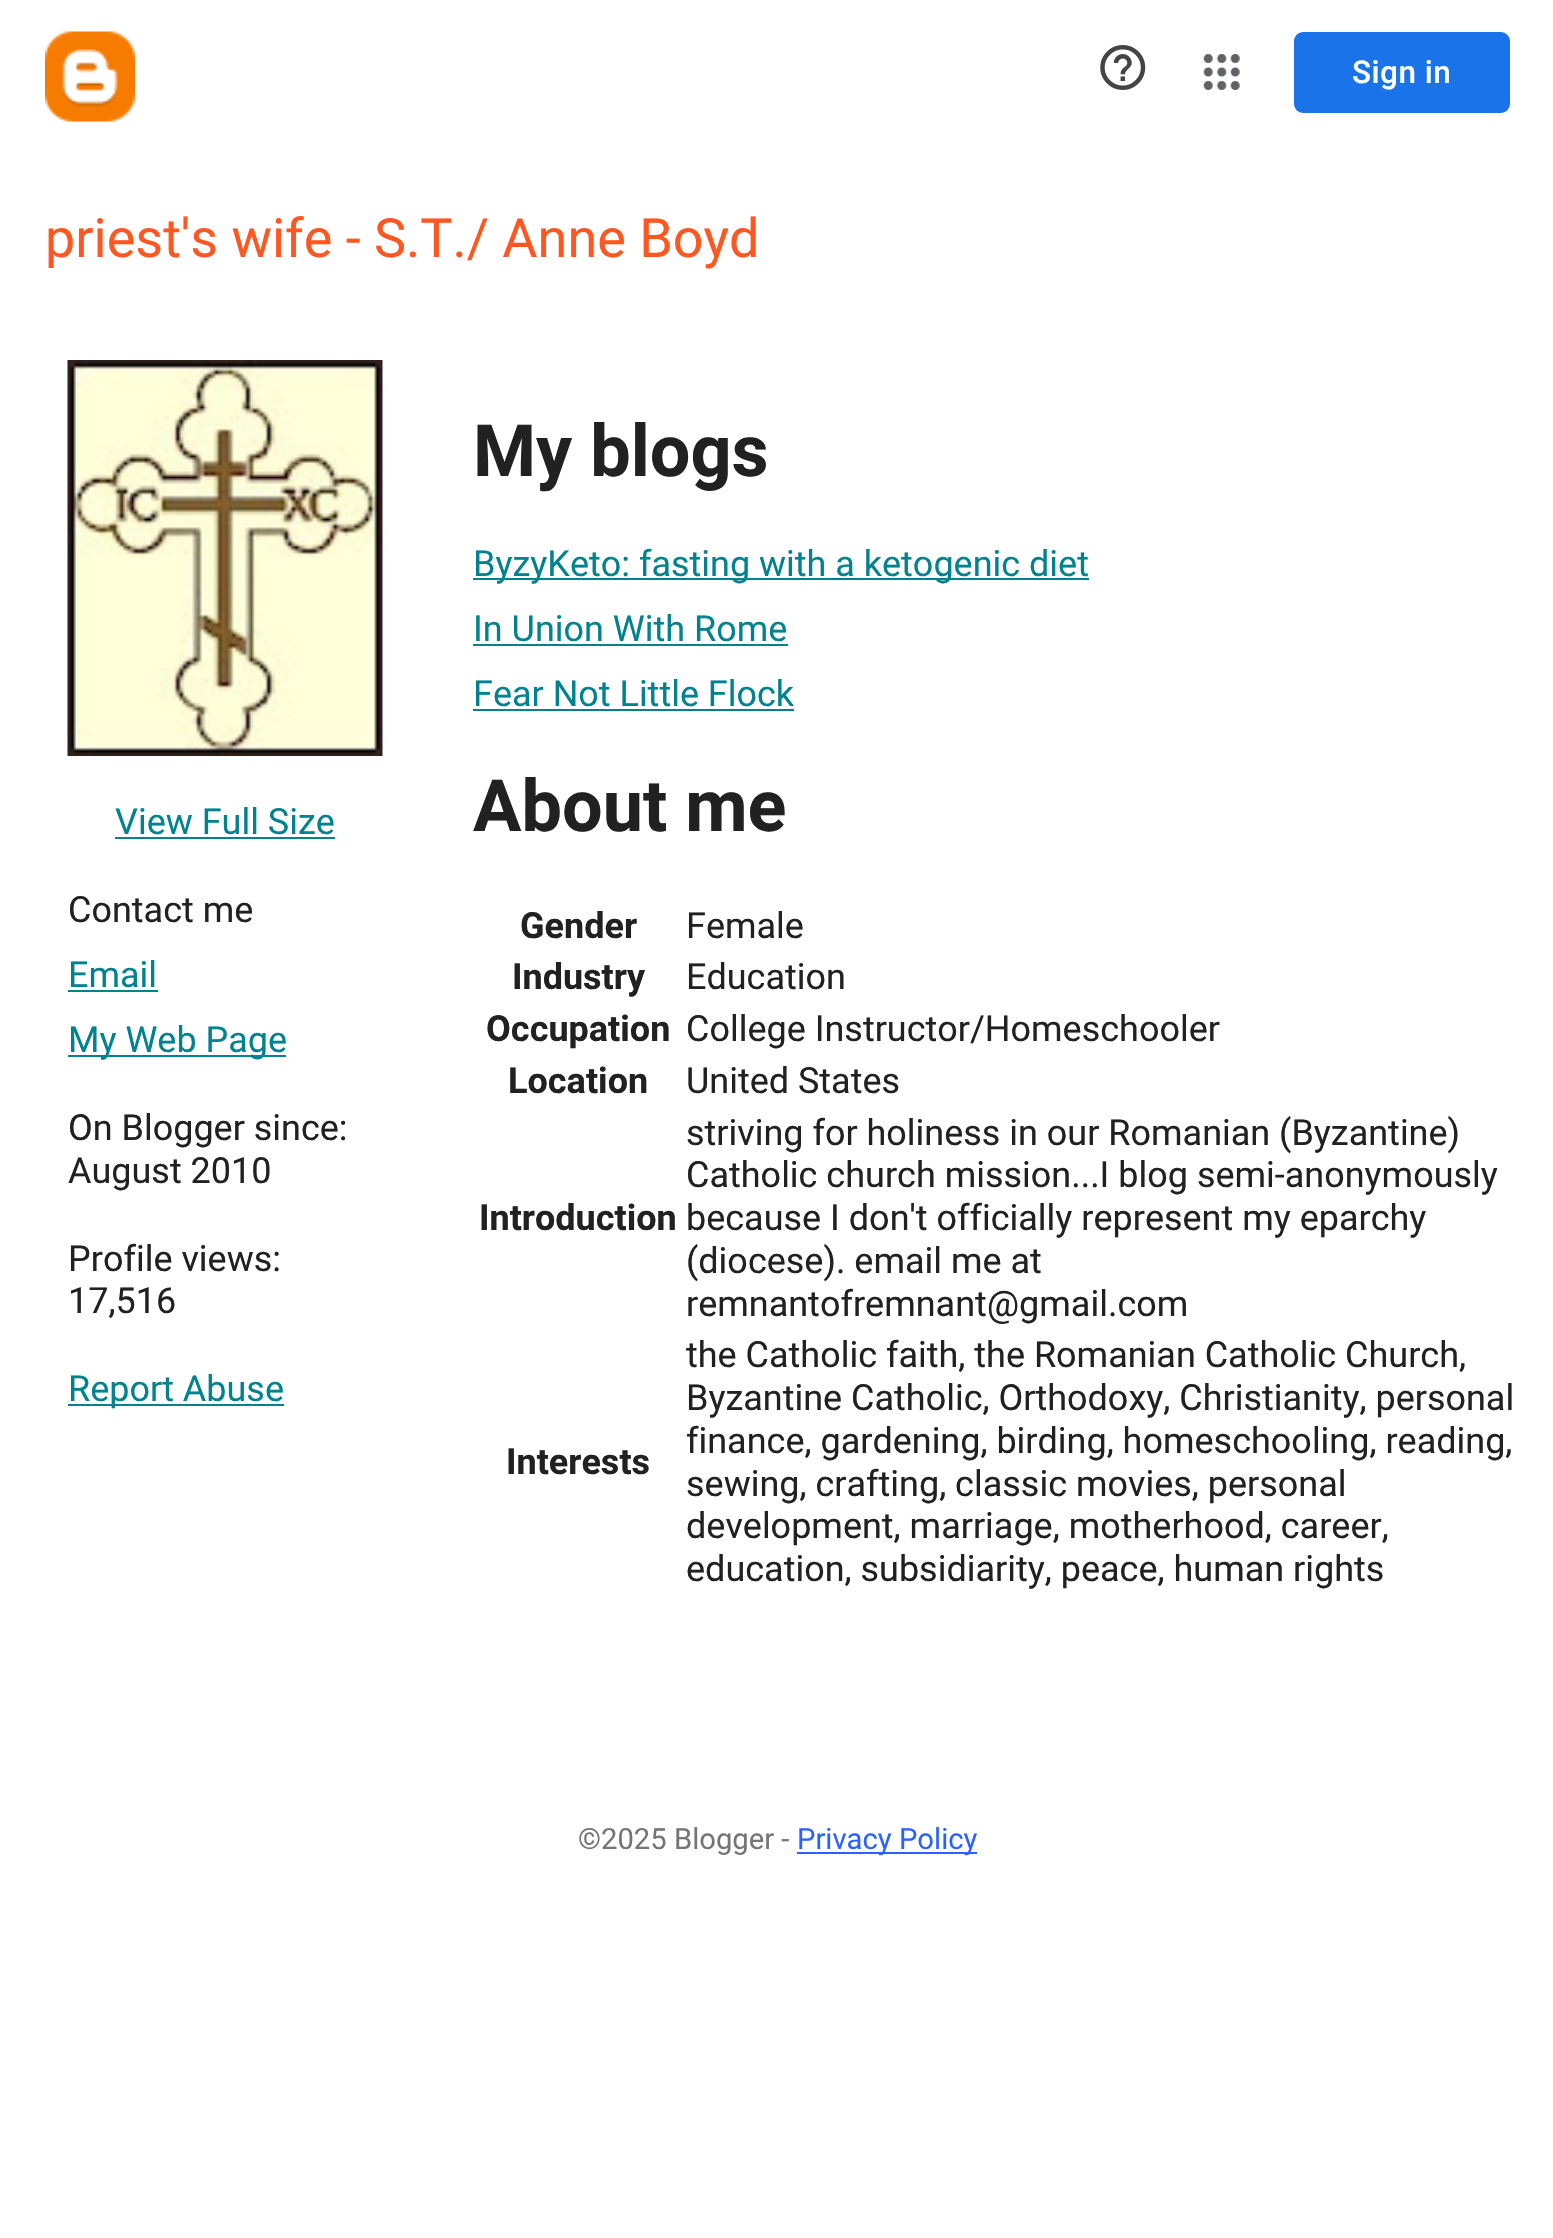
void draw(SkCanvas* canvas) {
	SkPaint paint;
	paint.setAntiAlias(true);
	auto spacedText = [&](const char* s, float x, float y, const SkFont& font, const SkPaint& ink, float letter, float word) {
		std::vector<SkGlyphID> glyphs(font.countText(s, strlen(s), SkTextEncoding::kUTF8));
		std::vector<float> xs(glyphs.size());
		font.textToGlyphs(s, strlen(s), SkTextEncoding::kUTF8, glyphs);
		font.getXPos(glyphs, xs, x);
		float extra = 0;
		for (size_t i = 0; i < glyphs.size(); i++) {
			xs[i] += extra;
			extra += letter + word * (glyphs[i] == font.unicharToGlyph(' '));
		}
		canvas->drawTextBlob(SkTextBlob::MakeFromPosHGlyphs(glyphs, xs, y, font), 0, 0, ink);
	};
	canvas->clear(0xffffffff);
	canvas->drawImageRect(SkImages::DeferredFromEncodedData(SkData::MakeFromFileName("img1.png")), SkRect::MakeXYWH(45, 31, 90, 91), SkSamplingOptions());
	canvas->drawImageRect(SkImages::DeferredFromEncodedData(SkData::MakeFromFileName("img2.png")), SkRect::MakeXYWH(1100, 45, 46, 45), SkSamplingOptions());
	canvas->drawImageRect(SkImages::DeferredFromEncodedData(SkData::MakeFromFileName("img3.png")), SkRect::MakeXYWH(1203, 54, 37, 36), SkSamplingOptions());
	paint.setColor(0xff1a73e8);
	canvas->drawRoundRect(SkRect::MakeXYWH(1294, 32, 216, 81), 9, 9, paint);
	SkFont f1(fontMgr->matchFamilyStyle("Roboto", SkFontStyle(500, SkFontStyle::kNormal_Width, SkFontStyle::kUpright_Slant)), 31.5);
	f1.setSubpixel(true);
	paint.setColor(0xffffffff);
	spacedText("Sign in", 1352, 83, f1, paint, 0.5, 0);
	SkFont f2(fontMgr->matchFamilyStyle("Roboto", SkFontStyle::Normal()), 54);
	f2.setSubpixel(true);
	paint.setColor(0xffff5722);
	canvas->drawString("priest's wife - S.T./ Anne Boyd", 45, 257, f2, paint);
	canvas->drawImageRect(SkImages::DeferredFromEncodedData(SkData::MakeFromFileName("img4.png")), SkRect::MakeXYWH(67, 360, 316, 396), SkSamplingOptions());
	SkFont f3(fontMgr->matchFamilyStyle("Roboto", SkFontStyle::Normal()), 36);
	f3.setSubpixel(true);
	paint.setColor(0xff00838f);
	canvas->drawString("View Full Size", 115, 834, f3, paint);
	canvas->drawRect(SkRect::MakeXYWH(115, 837, 220, 2), paint);
	paint.setColor(0xff212121);
	canvas->drawString("Contact me", 68, 922, f3, paint);
	paint.setColor(0xff00838f);
	canvas->drawString("Email", 68, 987, f3, paint);
	canvas->drawRect(SkRect::MakeXYWH(68, 990, 90, 2), paint);
	canvas->drawRect(SkRect::MakeXYWH(68, 1055, 218, 2), paint);
	canvas->drawString("My Web Page", 68, 1052, f3, paint);
	paint.setColor(0xff212121);
	canvas->drawString("On Blogger since:", 68, 1140, f3, paint);
	canvas->drawString("August 2010", 68, 1183, f3, paint);
	canvas->drawString("Profile views:", 68, 1271, f3, paint);
	canvas->drawString("17,516", 68, 1313, f3, paint);
	paint.setColor(0xff00838f);
	canvas->drawRect(SkRect::MakeXYWH(68, 1404, 216, 2), paint);
	canvas->drawString("Report Abuse", 68, 1401, f3, paint);
	SkFont f4(fontMgr->matchFamilyStyle("Roboto", SkFontStyle::Bold()), 72);
	f4.setSubpixel(true);
	paint.setColor(0xff212121);
	canvas->drawString("My blogs", 473, 476, f4, paint);
	paint.setColor(0xff00838f);
	canvas->drawRect(SkRect::MakeXYWH(473, 578, 616, 2), paint);
	canvas->drawString("ByzyKeto: fasting with a ketogenic diet", 473, 576, f3, paint);
	canvas->drawString("In Union With Rome", 473, 641, f3, paint);
	canvas->drawRect(SkRect::MakeXYWH(473, 644, 315, 2), paint);
	canvas->drawString("Fear Not Little Flock", 473, 706, f3, paint);
	canvas->drawRect(SkRect::MakeXYWH(473, 709, 321, 2), paint);
	paint.setColor(0xff212121);
	canvas->drawString("About me", 473, 831, f4, paint);
	SkFont f5(fontMgr->matchFamilyStyle("Roboto", SkFontStyle::Bold()), 36);
	f5.setSubpixel(true);
	canvas->drawString("Gender", 520, 938, f5, paint);
	canvas->drawString("Female", 686, 938, f3, paint);
	canvas->drawString("Industry", 512, 989, f5, paint);
	canvas->drawString("Education", 686, 989, f3, paint);
	canvas->drawString("Occupation", 486, 1041, f5, paint);
	canvas->drawString("College Instructor/Homeschooler", 686, 1041, f3, paint);
	canvas->drawString("Location", 508, 1093, f5, paint);
	canvas->drawString("United States", 686, 1093, f3, paint);
	canvas->drawString("Introduction", 479, 1230, f5, paint);
	canvas->drawString("striving for holiness in our Romanian (Byzantine)", 686, 1145, f3, paint);
	canvas->drawString("Catholic church mission...I blog semi-anonymously", 686, 1187, f3, paint);
	canvas->drawString("because I don't officially represent my eparchy", 686, 1230, f3, paint);
	canvas->drawString("(diocese). email me at", 686, 1273, f3, paint);
	canvas->drawString("remnantofremnant@gmail.com", 686, 1316, f3, paint);
	canvas->drawString("Interests", 506, 1474, f5, paint);
	canvas->drawString("the Catholic faith, the Romanian Catholic Church,", 686, 1367, f3, paint);
	canvas->drawString("Byzantine Catholic, Orthodoxy, Christianity, personal", 686, 1410, f3, paint);
	canvas->drawString("finance, gardening, birding, homeschooling, reading,", 686, 1453, f3, paint);
	canvas->drawString("sewing, crafting, classic movies, personal", 686, 1496, f3, paint);
	canvas->drawString("development, marriage, motherhood, career,", 686, 1538, f3, paint);
	canvas->drawString("education, subsidiarity, peace, human rights", 686, 1581, f3, paint);
	SkFont f6(fontMgr->matchFamilyStyle("Roboto", SkFontStyle::Normal()), 29.25);
	f6.setSubpixel(true);
	paint.setColor(0xff757575);
	canvas->drawString("©2025 Blogger -", 578, 1849, f6, paint);
	paint.setColor(0xff2962ff);
	canvas->drawRect(SkRect::MakeXYWH(797, 1852, 180, 2), paint);
	canvas->drawString("Privacy Policy", 797, 1849, f6, paint);
}
